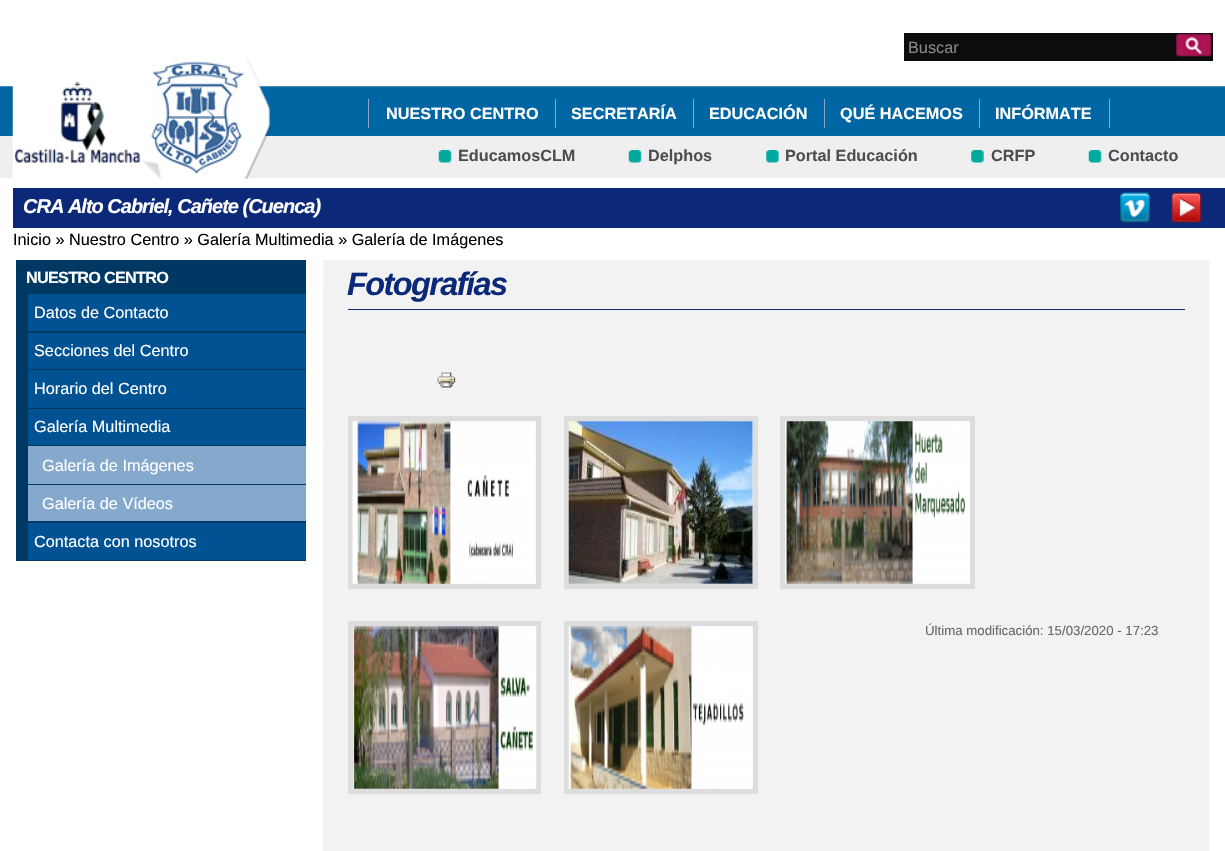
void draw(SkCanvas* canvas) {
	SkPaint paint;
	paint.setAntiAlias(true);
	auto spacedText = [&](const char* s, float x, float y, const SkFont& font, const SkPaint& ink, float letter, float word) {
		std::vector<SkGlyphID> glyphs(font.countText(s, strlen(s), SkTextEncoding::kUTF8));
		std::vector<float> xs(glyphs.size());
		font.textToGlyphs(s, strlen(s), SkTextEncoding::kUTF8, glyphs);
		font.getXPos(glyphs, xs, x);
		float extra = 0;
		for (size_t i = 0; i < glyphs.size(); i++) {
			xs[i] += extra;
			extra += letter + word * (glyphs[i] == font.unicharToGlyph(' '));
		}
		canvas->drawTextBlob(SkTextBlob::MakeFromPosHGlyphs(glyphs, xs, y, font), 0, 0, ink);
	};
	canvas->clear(0xffffffff);
	paint.setColor(0xff0d0d0d);
	canvas->drawRect(SkRect::MakeXYWH(904, 33, 309, 28), paint);
	SkFont f1(fontMgr->matchFamilyStyle("Liberation Sans", SkFontStyle::Normal()), 16.25);
	f1.setSubpixel(true);
	paint.setColor(0xff888888);
	canvas->drawString("Buscar", 908, 53, f1, paint);
	canvas->drawImageRect(SkImages::DeferredFromEncodedData(SkData::MakeFromFileName("img1.png")), SkRect::MakeXYWH(1176, 33, 36, 24), SkSamplingOptions());
	canvas->drawImageRect(SkImages::DeferredFromEncodedData(SkData::MakeFromFileName("img4.png")), SkRect::MakeXYWH(0, 86, 1225, 50), SkSamplingOptions());
	paint.setColor(0xffefefef);
	canvas->drawRect(SkRect::MakeXYWH(0, 136, 1225, 42), paint);
	canvas->drawImageRect(SkImages::DeferredFromEncodedData(SkData::MakeFromFileName("img2.png")), SkRect::MakeXYWH(12, 81, 148, 97), SkSamplingOptions());
	canvas->drawImageRect(SkImages::DeferredFromEncodedData(SkData::MakeFromFileName("img3.png")), SkRect::MakeXYWH(142, 55, 128, 124), SkSamplingOptions());
	SkFont f2(fontMgr->matchFamilyStyle("Liberation Sans", SkFontStyle::Bold()), 16.25);
	f2.setSubpixel(true);
	paint.setColor(0xffffffff);
	canvas->drawString("NUESTRO CENTRO", 386, 119, f2, paint);
	paint.setColor(0xff85a9cc);
	canvas->drawRect(SkRect::MakeXYWH(555, 99, 1, 29), paint);
	canvas->drawRect(SkRect::MakeXYWH(368, 99, 1, 29), paint);
	paint.setColor(0xffffffff);
	canvas->drawString("SECRETARÍA", 571, 119, f2, paint);
	paint.setColor(0xff85a9cc);
	canvas->drawRect(SkRect::MakeXYWH(693, 99, 1, 29), paint);
	paint.setColor(0xffffffff);
	canvas->drawString("EDUCACIÓN", 709, 119, f2, paint);
	paint.setColor(0xff85a9cc);
	canvas->drawRect(SkRect::MakeXYWH(824, 99, 1, 29), paint);
	paint.setColor(0xffffffff);
	canvas->drawString("QUÉ HACEMOS", 840, 119, f2, paint);
	paint.setColor(0xff85a9cc);
	canvas->drawRect(SkRect::MakeXYWH(979, 99, 1, 29), paint);
	paint.setColor(0xffffffff);
	canvas->drawString("INFÓRMATE", 995, 119, f2, paint);
	paint.setColor(0xff85a9cc);
	canvas->drawRect(SkRect::MakeXYWH(1109, 99, 1, 29), paint);
	canvas->drawImageRect(SkImages::DeferredFromEncodedData(SkData::MakeFromFileName("img5.png")), SkRect::MakeXYWH(438, 150, 14, 13), SkSamplingOptions());
	paint.setColor(0xff4e4d52);
	canvas->drawString("EducamosCLM", 458, 161, f2, paint);
	canvas->drawImageRect(SkImages::DeferredFromEncodedData(SkData::MakeFromFileName("img5.png")), SkRect::MakeXYWH(628, 150, 14, 13), SkSamplingOptions());
	canvas->drawString("Delphos", 648, 161, f2, paint);
	canvas->drawImageRect(SkImages::DeferredFromEncodedData(SkData::MakeFromFileName("img6.png")), SkRect::MakeXYWH(766, 150, 13, 13), SkSamplingOptions());
	canvas->drawString("Portal Educación", 785, 161, f2, paint);
	canvas->drawImageRect(SkImages::DeferredFromEncodedData(SkData::MakeFromFileName("img6.png")), SkRect::MakeXYWH(971, 150, 13, 13), SkSamplingOptions());
	canvas->drawString("CRFP", 991, 161, f2, paint);
	canvas->drawImageRect(SkImages::DeferredFromEncodedData(SkData::MakeFromFileName("img5.png")), SkRect::MakeXYWH(1088, 150, 14, 13), SkSamplingOptions());
	canvas->drawString("Contacto", 1108, 161, f2, paint);
	paint.setColor(0xff0c2979);
	canvas->drawRect(SkRect::MakeXYWH(13, 188, 1212, 40), paint);
	SkFont f3(fontMgr->matchFamilyStyle("Liberation Sans", SkFontStyle::BoldItalic()), 20);
	f3.setSubpixel(true);
	paint.setColor(0xffffffff);
	spacedText("CRA Alto Cabriel, Cañete (Cuenca)", 23, 213, f3, paint, -1, 0);
	canvas->drawImageRect(SkImages::DeferredFromEncodedData(SkData::MakeFromFileName("img7.png")), SkRect::MakeXYWH(1120, 192, 30, 31), SkSamplingOptions());
	canvas->drawImageRect(SkImages::DeferredFromEncodedData(SkData::MakeFromFileName("img8.png")), SkRect::MakeXYWH(1171, 192, 31, 31), SkSamplingOptions());
	paint.setColor(0xff000000);
	canvas->drawString("Inicio » Nuestro Centro » Galería Multimedia » Galería de Imágenes", 13, 245, f1, paint);
	paint.setColor(0xff003864);
	canvas->drawRect(SkRect::MakeXYWH(16, 260, 290, 301), paint);
	paint.setColor(0xffffffff);
	spacedText("NUESTRO CENTRO", 26, 283, f2, paint, -0.75, 0);
	paint.setColor(0xff005293);
	canvas->drawRect(SkRect::MakeXYWH(28, 294, 278, 37), paint);
	paint.setColor(0xffffffff);
	canvas->drawString("Datos de Contacto", 34, 318, f1, paint);
	paint.setColor(0xff005293);
	canvas->drawRect(SkRect::MakeXYWH(28, 333, 278, 36), paint);
	paint.setColor(0xffffffff);
	canvas->drawString("Secciones del Centro", 34, 356, f1, paint);
	paint.setColor(0xff005293);
	canvas->drawRect(SkRect::MakeXYWH(28, 370, 278, 38), paint);
	paint.setColor(0xffffffff);
	canvas->drawString("Horario del Centro", 34, 394, f1, paint);
	paint.setColor(0xff005293);
	canvas->drawRect(SkRect::MakeXYWH(28, 409, 278, 36), paint);
	paint.setColor(0xffffffff);
	canvas->drawString("Galería Multimedia", 34, 432, f1, paint);
	paint.setColor(0xff85a9cc);
	canvas->drawRect(SkRect::MakeXYWH(28, 446, 278, 38), paint);
	paint.setColor(0xffffffff);
	canvas->drawString("Galería de Imágenes", 42, 471, f1, paint);
	paint.setColor(0xff85a9cc);
	canvas->drawRect(SkRect::MakeXYWH(28, 485, 278, 36), paint);
	paint.setColor(0xffffffff);
	canvas->drawString("Galería de Vídeos", 42, 509, f1, paint);
	paint.setColor(0xff005293);
	canvas->drawRect(SkRect::MakeXYWH(28, 523, 278, 37), paint);
	paint.setColor(0xffffffff);
	canvas->drawString("Contacta con nosotros", 34, 547, f1, paint);
	paint.setColor(0xfff2f2f2);
	canvas->drawRect(SkRect::MakeXYWH(323, 260, 886, 591), paint);
	paint.setColor(0xff0c2979);
	canvas->drawRect(SkRect::MakeXYWH(348, 309, 837, 1), paint);
	SkFont f4(fontMgr->matchFamilyStyle("Liberation Sans", SkFontStyle::BoldItalic()), 32.5);
	f4.setSubpixel(true);
	spacedText("Fotografías", 347, 295, f4, paint, -1.6, 0);
	canvas->drawImageRect(SkImages::DeferredFromEncodedData(SkData::MakeFromFileName("img9.png")), SkRect::MakeXYWH(437, 372, 19, 16), SkSamplingOptions());
	paint.setStroke(true);
	paint.setStrokeWidth(5);
	paint.setColor(0xffdddddd);
	canvas->drawRect(SkRect::MakeXYWH(350.5, 418.5, 188, 168), paint);
	canvas->drawImageRect(SkImages::DeferredFromEncodedData(SkData::MakeFromFileName("img10.png")), SkRect::MakeXYWH(352, 421, 184, 163), SkSamplingOptions());
	canvas->drawRect(SkRect::MakeXYWH(566.5, 418.5, 189, 168), paint);
	canvas->drawImageRect(SkImages::DeferredFromEncodedData(SkData::MakeFromFileName("img11.png")), SkRect::MakeXYWH(568, 421, 185, 163), SkSamplingOptions());
	canvas->drawRect(SkRect::MakeXYWH(782.5, 418.5, 190, 168), paint);
	canvas->drawImageRect(SkImages::DeferredFromEncodedData(SkData::MakeFromFileName("img12.png")), SkRect::MakeXYWH(785, 421, 185, 163), SkSamplingOptions());
	canvas->drawRect(SkRect::MakeXYWH(350.5, 623.5, 188, 168), paint);
	canvas->drawImageRect(SkImages::DeferredFromEncodedData(SkData::MakeFromFileName("img13.png")), SkRect::MakeXYWH(353, 626, 184, 163), SkSamplingOptions());
	canvas->drawRect(SkRect::MakeXYWH(566.5, 623.5, 189, 168), paint);
	canvas->drawImageRect(SkImages::DeferredFromEncodedData(SkData::MakeFromFileName("img14.png")), SkRect::MakeXYWH(568, 626, 185, 163), SkSamplingOptions());
	SkFont f5(fontMgr->matchFamilyStyle("Liberation Sans", SkFontStyle::Normal()), 13.25);
	f5.setSubpixel(true);
	paint.setStroke(false);
	paint.setColor(0xff666666);
	canvas->drawString("Última modificación: 15/03/2020 - 17:23", 925, 635, f5, paint);
}
